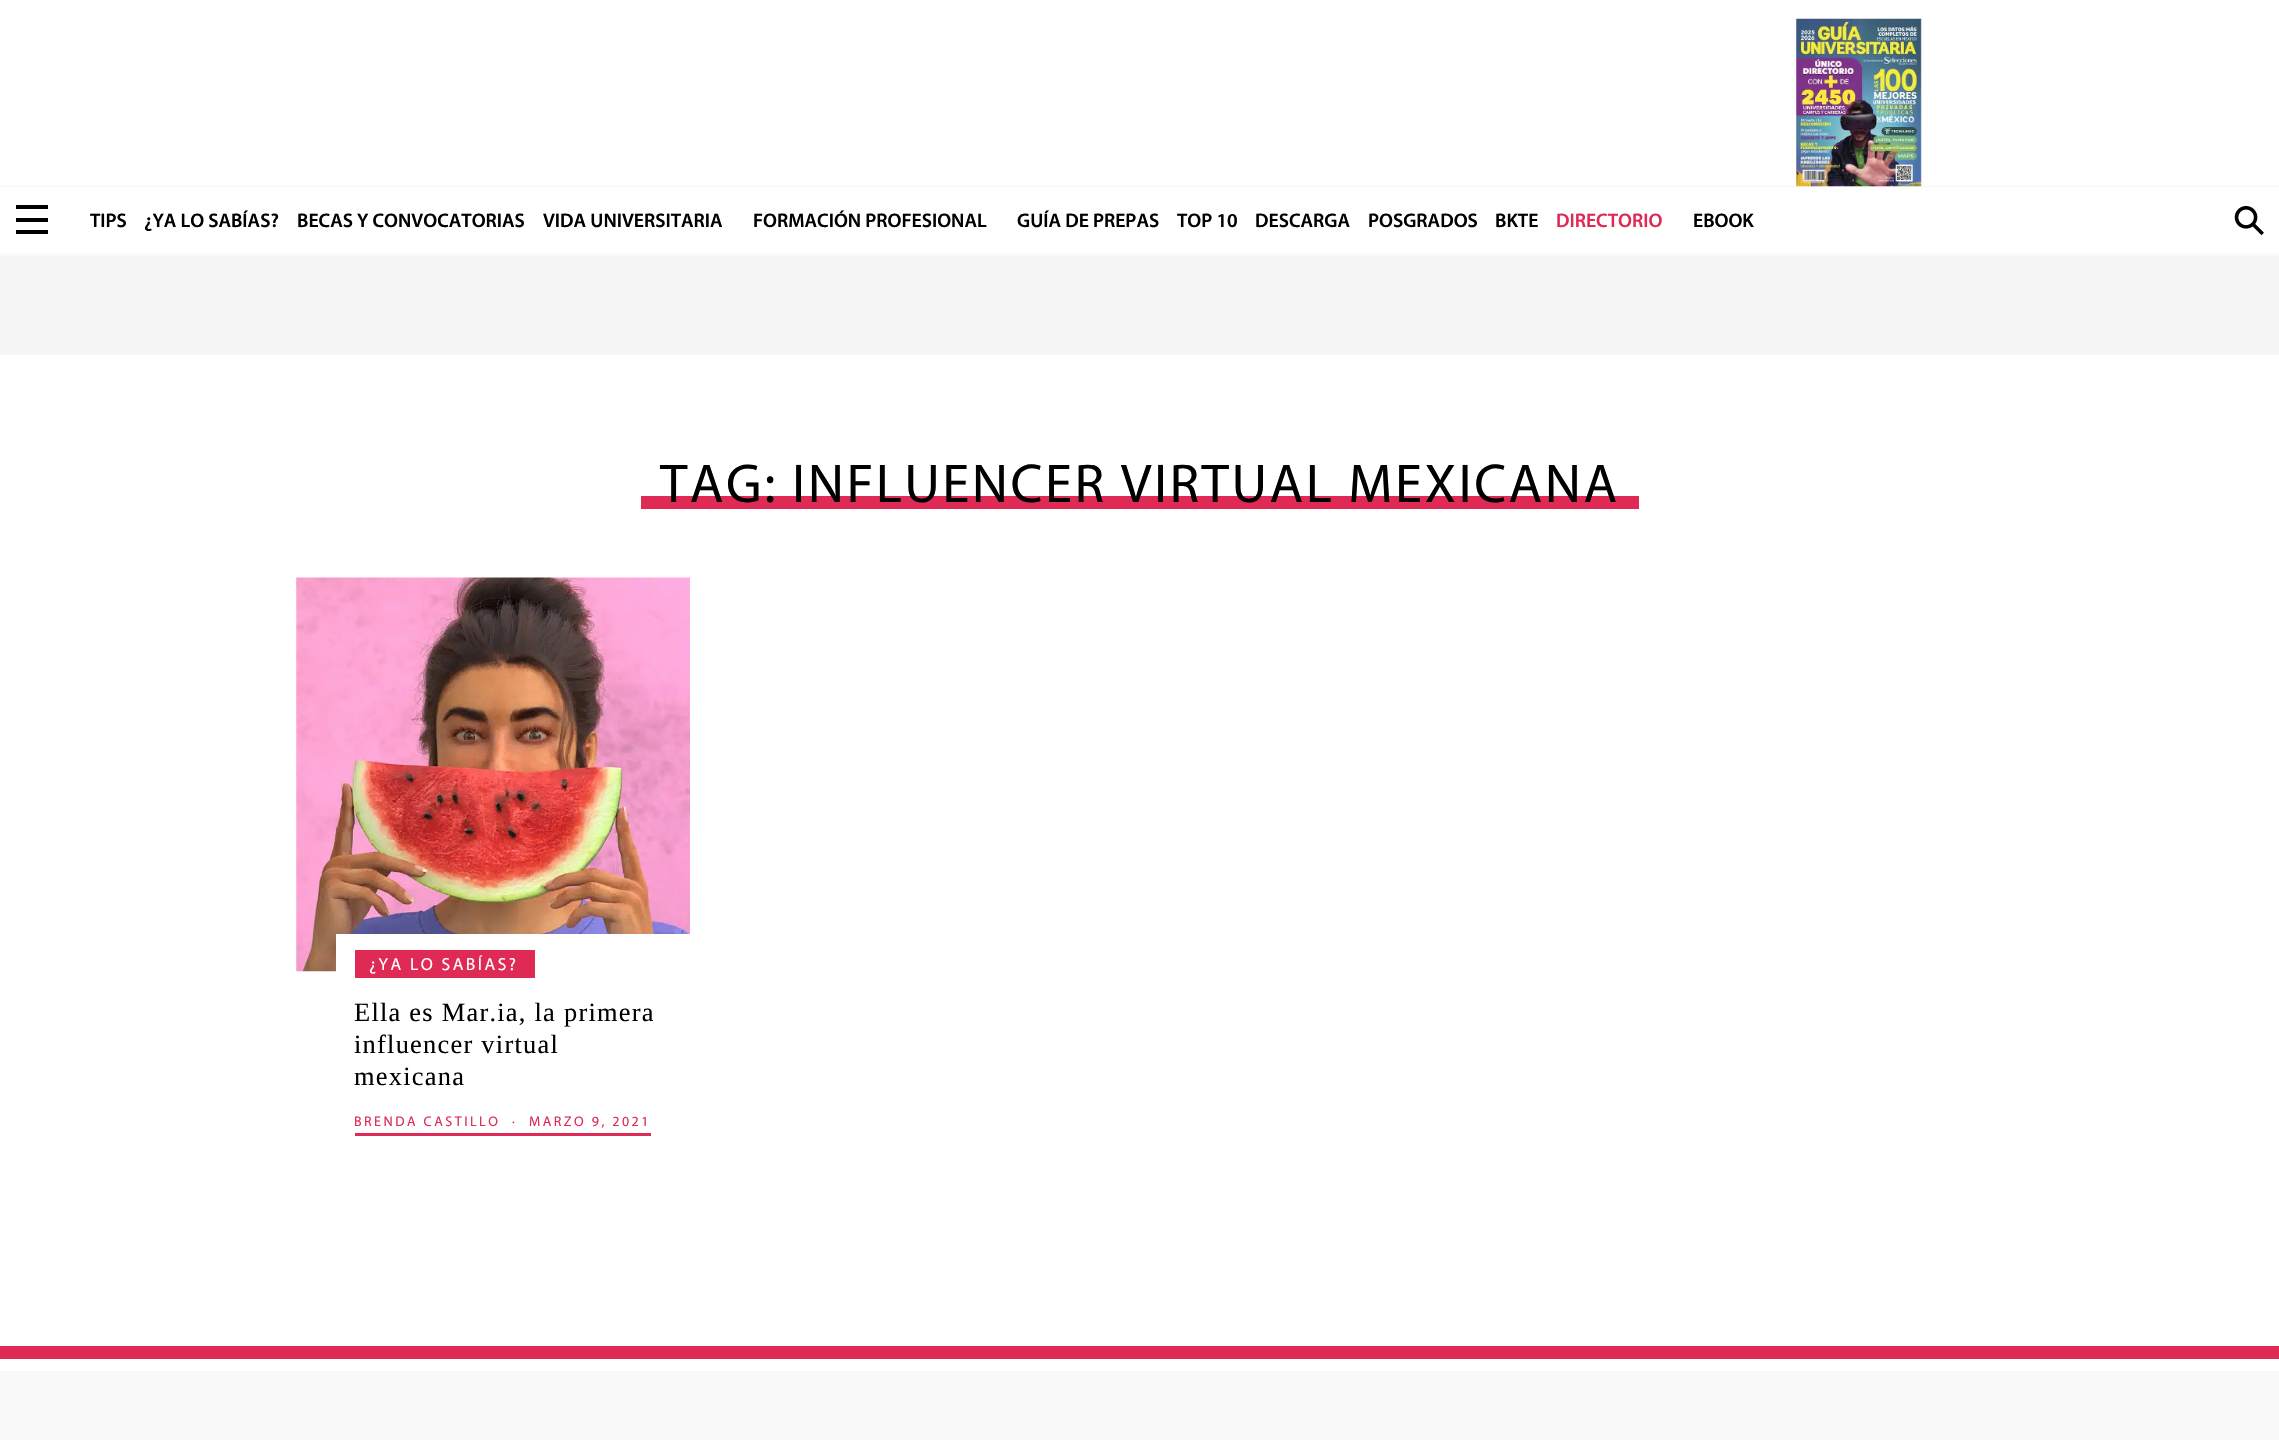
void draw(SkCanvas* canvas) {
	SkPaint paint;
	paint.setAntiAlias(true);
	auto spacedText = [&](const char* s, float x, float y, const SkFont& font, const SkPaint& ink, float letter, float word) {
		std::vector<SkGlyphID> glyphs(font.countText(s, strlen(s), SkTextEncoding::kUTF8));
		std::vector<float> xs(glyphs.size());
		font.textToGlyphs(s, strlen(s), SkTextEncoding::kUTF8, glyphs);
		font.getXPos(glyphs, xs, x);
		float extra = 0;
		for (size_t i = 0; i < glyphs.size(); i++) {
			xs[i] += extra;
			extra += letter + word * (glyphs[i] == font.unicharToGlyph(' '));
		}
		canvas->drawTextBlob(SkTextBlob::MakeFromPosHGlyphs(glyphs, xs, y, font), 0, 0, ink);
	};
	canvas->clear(0xffffffff);
	paint.setColor(0xfff6f6f6);
	canvas->drawRect(SkRect::MakeXYWH(0, 186, 2279, 1), paint);
	canvas->drawImageRect(SkImages::DeferredFromEncodedData(SkData::MakeFromFileName("img1.png")), SkRect::MakeXYWH(1796, 18, 126, 169), SkSamplingOptions());
	canvas->drawRect(SkRect::MakeXYWH(0, 254, 2279, 1), paint);
	paint.setColor(0xff000000);
	canvas->drawRect(SkRect::MakeXYWH(16, 205, 32, 4), paint);
	canvas->drawRect(SkRect::MakeXYWH(16, 218, 32, 4), paint);
	canvas->drawRect(SkRect::MakeXYWH(16, 230, 32, 4), paint);
	SkFont f1(fontMgr->matchFamilyStyle("Myriad", SkFontStyle(600, SkFontStyle::kNormal_Width, SkFontStyle::kUpright_Slant)), 19.75);
	f1.setSubpixel(true);
	canvas->drawString("TIPS", 90, 227, f1, paint);
	canvas->drawString("¿YA LO SABÍAS?", 144, 227, f1, paint);
	canvas->drawString("BECAS Y CONVOCATORIAS", 297, 227, f1, paint);
	canvas->drawString("VIDA UNIVERSITARIA", 543, 227, f1, paint);
	canvas->drawString("FORMACIÓN PROFESIONAL", 753, 227, f1, paint);
	canvas->drawString("GUÍA DE PREPAS", 1017, 227, f1, paint);
	canvas->drawString("TOP 10", 1177, 227, f1, paint);
	canvas->drawString("DESCARGA", 1255, 227, f1, paint);
	canvas->drawString("POSGRADOS", 1368, 227, f1, paint);
	canvas->drawString("BKTE", 1495, 227, f1, paint);
	paint.setColor(0xffde2a55);
	canvas->drawString("DIRECTORIO", 1556, 227, f1, paint);
	paint.setColor(0xff000000);
	canvas->drawString("EBOOK", 1693, 227, f1, paint);
	canvas->drawImageRect(SkImages::DeferredFromEncodedData(SkData::MakeFromFileName("img2.png")), SkRect::MakeXYWH(2234, 206, 30, 30), SkSamplingOptions());
	paint.setColor(0xfff9f9f9);
	canvas->drawRect(SkRect::MakeXYWH(0, 255, 2279, 1), paint);
	paint.setColor(0xfff5f5f5);
	canvas->drawRect(SkRect::MakeXYWH(0, 256, 2279, 99), paint);
	paint.setColor(0xffde2a55);
	canvas->drawRect(SkRect::MakeXYWH(641, 496, 998, 13), paint);
	SkFont f2(fontMgr->matchFamilyStyle("Myriad", SkFontStyle::Normal()), 55);
	f2.setSubpixel(true);
	paint.setColor(0xff000000);
	spacedText("TAG: INFLUENCER VIRTUAL MEXICANA", 660, 502, f2, paint, 2.5, 0);
	canvas->drawImageRect(SkImages::DeferredFromEncodedData(SkData::MakeFromFileName("img3.png")), SkRect::MakeXYWH(296, 577, 394, 395), SkSamplingOptions());
	paint.setColor(0xffffffff);
	canvas->drawRect(SkRect::MakeXYWH(336, 934, 354, 38), paint);
	paint.setColor(0xffde2a55);
	canvas->drawRect(SkRect::MakeXYWH(355, 950, 180, 28), paint);
	SkFont f3(fontMgr->matchFamilyStyle("Myriad", SkFontStyle::Normal()), 17.5);
	f3.setSubpixel(true);
	paint.setColor(0xffffffff);
	spacedText("¿YA LO SABÍAS?", 369, 970, f3, paint, 2.5, 0);
	SkFont f4(fontMgr->matchFamilyStyle("Tinos", SkFontStyle::Normal()), 26.4);
	f4.setSubpixel(true);
	paint.setColor(0xff000000);
	spacedText("Ella es Mar.ia, la primera", 354, 1021, f4, paint, 1.25, 0);
	spacedText("influencer virtual", 354, 1053, f4, paint, 1.25, 0);
	spacedText("mexicana", 354, 1085, f4, paint, 1.25, 0);
	paint.setColor(0xffde2a55);
	canvas->drawRect(SkRect::MakeXYWH(355, 1133, 296, 3), paint);
	SkFont f5(fontMgr->matchFamilyStyle("Myriad", SkFontStyle::Normal()), 14);
	f5.setSubpixel(true);
	spacedText("BRENDA CASTILLO", 354, 1126, f5, paint, 2.5, 0);
	spacedText("·", 512, 1126, f5, paint, 2.5, 0);
	spacedText("MARZO 9, 2021", 529, 1126, f5, paint, 2.5, 0);
	canvas->drawRect(SkRect::MakeXYWH(0, 1346, 2279, 13), paint);
	paint.setColor(0xfff9f9f9);
	canvas->drawRect(SkRect::MakeXYWH(0, 1371, 2279, 69), paint);
}
